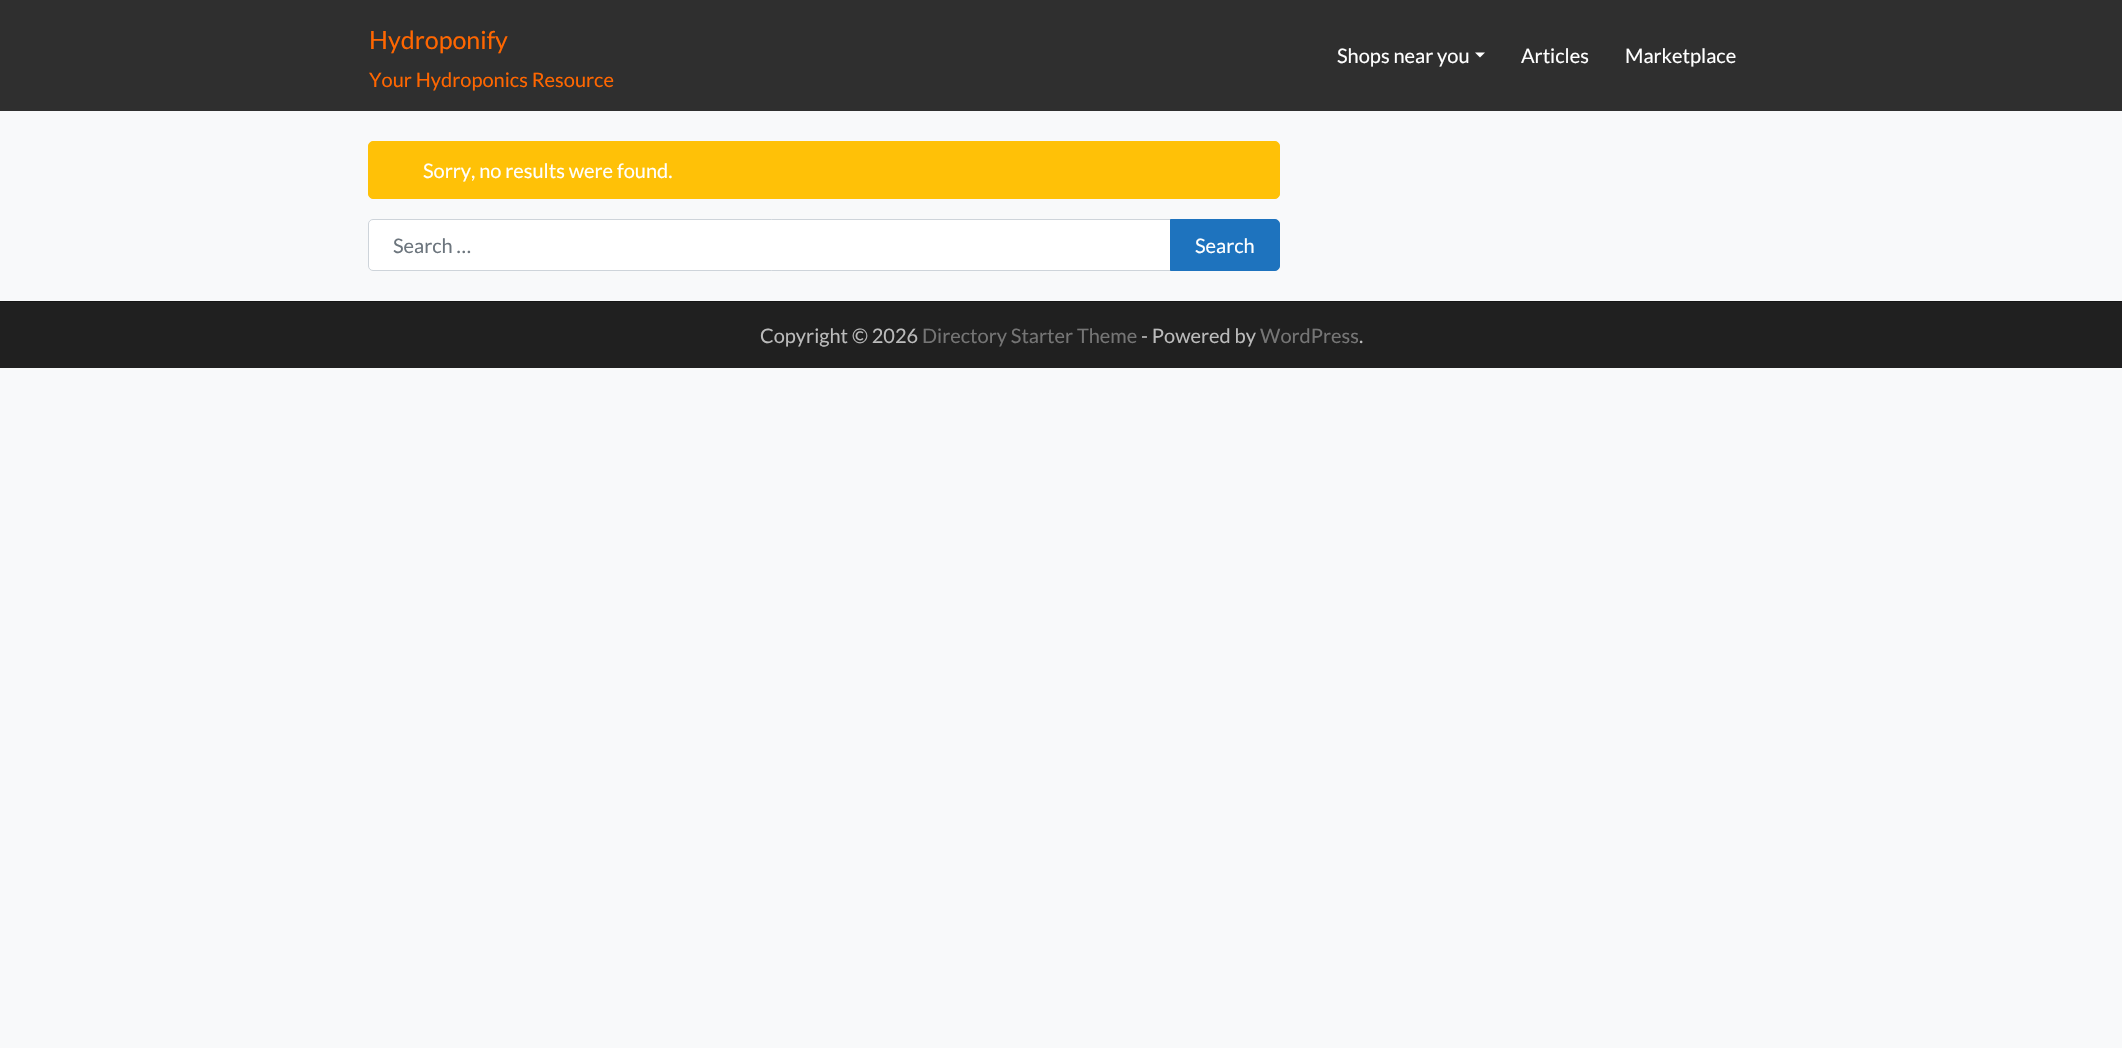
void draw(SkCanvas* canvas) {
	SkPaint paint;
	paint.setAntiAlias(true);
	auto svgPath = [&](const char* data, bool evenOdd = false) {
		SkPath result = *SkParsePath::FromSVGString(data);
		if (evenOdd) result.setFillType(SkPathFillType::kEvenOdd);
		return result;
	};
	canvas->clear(0xfff8f9fa);
	paint.setColor(0xff2f2f2f);
	canvas->drawRect(SkRect::MakeXYWH(0, 0, 2122, 111), paint);
	SkFont f1(fontMgr->matchFamilyStyle("Lato", SkFontStyle::Normal()), 25);
	f1.setSubpixel(true);
	paint.setColor(0xffff6600);
	canvas->drawString("Hydroponify", 369, 49, f1, paint);
	SkFont f2(fontMgr->matchFamilyStyle("Lato", SkFontStyle::Normal()), 20);
	f2.setSubpixel(true);
	canvas->drawString("Your Hydroponics Resource", 369, 87, f2, paint);
	paint.setColor(0xffffffff);
	canvas->drawString("Shops near you", 1337, 63, f2, paint);
	canvas->drawPath(svgPath("M1475 52.5H1485L1480 57.5Z"), paint);
	canvas->drawString("Articles", 1521, 63, f2, paint);
	canvas->drawString("Marketplace", 1625, 63, f2, paint);
	paint.setColor(0xffffc107);
	canvas->drawRoundRect(SkRect::MakeXYWH(368.5, 141.5, 911, 57), 4.5, 4.5, paint);
	paint.setStroke(true);
	paint.setStrokeWidth(1);
	canvas->drawRoundRect(SkRect::MakeXYWH(368.5, 141.5, 911, 57), 4.5, 4.5, paint);
	paint.setStroke(false);
	paint.setColor(0xffffffff);
	canvas->drawString("Sorry, no results were found.", 423, 178, f2, paint);
	canvas->drawPath(svgPath("M373 219.5H1170.5V270.5H373C370.5 270.5 368.5 268.5 368.5 266V224C368.5 221.5 370.5 219.5 373 219.5Z"), paint);
	paint.setStroke(true);
	paint.setColor(0xffced4da);
	canvas->drawPath(svgPath("M373 219.5H1170.5V270.5H373C370.5 270.5 368.5 268.5 368.5 266V224C368.5 221.5 370.5 219.5 373 219.5Z"), paint);
	paint.setStroke(false);
	paint.setColor(0xff6c757d);
	canvas->drawString("Search …", 393, 253, f2, paint);
	paint.setColor(0xff1e73be);
	canvas->drawPath(svgPath("M1170.5 219.5H1275C1277.5 219.5 1279.5 221.5 1279.5 224V266C1279.5 268.5 1277.5 270.5 1275 270.5H1170.5Z"), paint);
	paint.setStroke(true);
	canvas->drawPath(svgPath("M1170.5 219.5H1275C1277.5 219.5 1279.5 221.5 1279.5 224V266C1279.5 268.5 1277.5 270.5 1275 270.5H1170.5Z"), paint);
	paint.setStroke(false);
	paint.setColor(0xffffffff);
	canvas->drawString("Search", 1195, 253, f2, paint);
	paint.setColor(0xff202020);
	canvas->drawRect(SkRect::MakeXYWH(0, 302, 2122, 66), paint);
	paint.setColor(0xff151515);
	canvas->drawRect(SkRect::MakeXYWH(0, 301, 2122, 1), paint);
	paint.setColor(0xffbbbbbb);
	canvas->drawString("Copyright © 2026", 760, 343, f2, paint);
	paint.setColor(0xff757575);
	canvas->drawString("Directory Starter Theme", 922, 343, f2, paint);
	paint.setColor(0xffbbbbbb);
	canvas->drawString("- Powered by", 1141, 343, f2, paint);
	paint.setColor(0xff757575);
	canvas->drawString("WordPress", 1260, 343, f2, paint);
	paint.setColor(0xffbbbbbb);
	canvas->drawString(".", 1359, 343, f2, paint);
}
